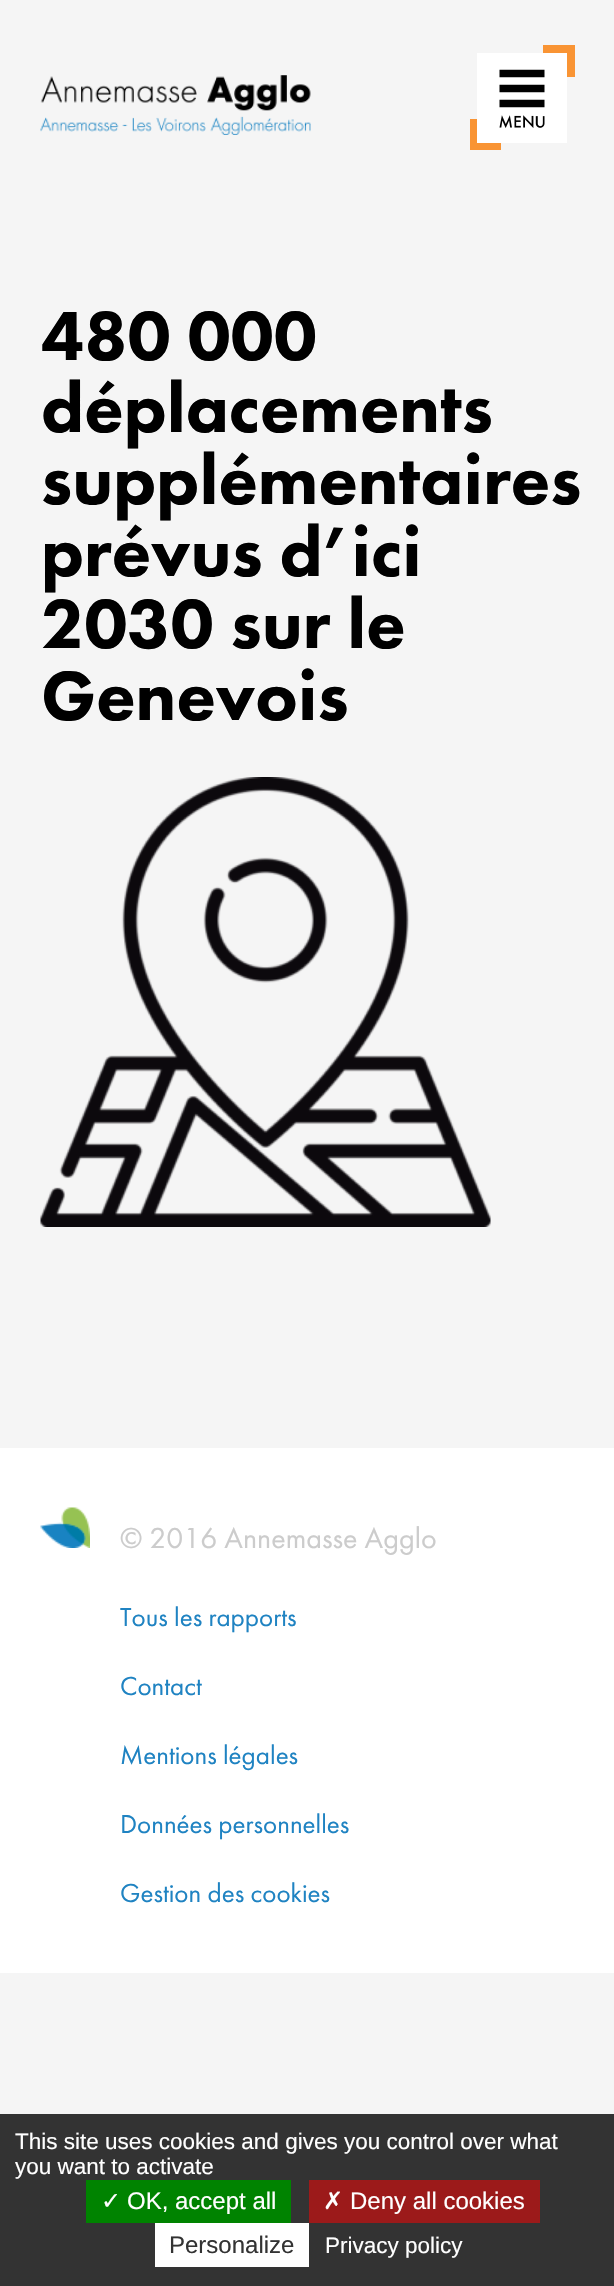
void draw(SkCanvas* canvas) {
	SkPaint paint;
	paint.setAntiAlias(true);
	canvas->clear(0xfff5f5f5);
	canvas->drawImageRect(SkImages::DeferredFromEncodedData(SkData::MakeFromFileName("img1.png")), SkRect::MakeXYWH(40, 75, 271, 60), SkSamplingOptions());
	paint.setColor(0xfff99434);
	canvas->drawRect(SkRect::MakeXYWH(543, 45, 32, 8), paint);
	canvas->drawRect(SkRect::MakeXYWH(567, 45, 8, 32), paint);
	paint.setColor(0xffffffff);
	canvas->drawRect(SkRect::MakeXYWH(477, 53, 90, 90), paint);
	canvas->drawImageRect(SkImages::DeferredFromEncodedData(SkData::MakeFromFileName("img2.png")), SkRect::MakeXYWH(499, 69, 46, 59), SkSamplingOptions());
	paint.setColor(0xfff99434);
	canvas->drawRect(SkRect::MakeXYWH(470, 143, 31, 7), paint);
	canvas->drawRect(SkRect::MakeXYWH(470, 119, 7, 31), paint);
	SkFont f1(fontMgr->matchFamilyStyle("Futura PT", SkFontStyle(900, SkFontStyle::kNormal_Width, SkFontStyle::kUpright_Slant)), 72);
	f1.setSubpixel(true);
	paint.setColor(0xff000000);
	canvas->drawString("480 000", 41, 360, f1, paint);
	canvas->drawString("déplacements", 41, 432, f1, paint);
	canvas->drawString("supplémentaires", 41, 504, f1, paint);
	canvas->drawString("prévus d’ici", 41, 576, f1, paint);
	canvas->drawString("2030 sur le", 41, 648, f1, paint);
	canvas->drawString("Genevois", 41, 720, f1, paint);
	canvas->drawImageRect(SkImages::DeferredFromEncodedData(SkData::MakeFromFileName("img3.png")), SkRect::MakeXYWH(40, 777, 451, 450), SkSamplingOptions());
	paint.setColor(0xffffffff);
	canvas->drawRect(SkRect::MakeXYWH(0, 1448, 614, 525), paint);
	canvas->drawImageRect(SkImages::DeferredFromEncodedData(SkData::MakeFromFileName("img4.png")), SkRect::MakeXYWH(40, 1507, 50, 41), SkSamplingOptions());
	SkFont f2(fontMgr->matchFamilyStyle("Futura PT", SkFontStyle::Normal()), 30);
	f2.setSubpixel(true);
	paint.setColor(0xffcccccc);
	canvas->drawString("© 2016 Annemasse Agglo", 120, 1548, f2, paint);
	SkFont f3(fontMgr->matchFamilyStyle("Futura PT", SkFontStyle::Normal()), 27);
	f3.setSubpixel(true);
	paint.setColor(0xff1f83c2);
	canvas->drawString("Tous les rapports", 120, 1626, f3, paint);
	canvas->drawString("Contact", 120, 1695, f3, paint);
	canvas->drawString("Mentions légales", 120, 1764, f3, paint);
	canvas->drawString("Données personnelles", 120, 1833, f3, paint);
	canvas->drawString("Gestion des cookies", 120, 1902, f3, paint);
	paint.setColor(0xff333333);
	canvas->drawRect(SkRect::MakeXYWH(0, 2114, 614, 172), paint);
	SkFont f4(fontMgr->matchFamilyStyle("Liberation Sans", SkFontStyle::Normal()), 22.5);
	f4.setSubpixel(true);
	paint.setColor(0xffffffff);
	canvas->drawString("This site uses cookies and gives you control over what", 15, 2149, f4, paint);
	canvas->drawString("you want to activate", 15, 2174, f4, paint);
	paint.setColor(0xff008300);
	canvas->drawRect(SkRect::MakeXYWH(86, 2180, 205, 43), paint);
	SkFont f5(fontMgr->matchFamilyStyle("DejaVu Sans", SkFontStyle::Normal()), 24);
	f5.setSubpixel(true);
	paint.setColor(0xffffffff);
	canvas->drawString("✓", 101, 2209, f5, paint);
	SkFont f6(fontMgr->matchFamilyStyle("Liberation Sans", SkFontStyle::Normal()), 24);
	f6.setSubpixel(true);
	canvas->drawString("OK, accept all", 127, 2209, f6, paint);
	paint.setColor(0xff9c1a1a);
	canvas->drawRect(SkRect::MakeXYWH(309, 2180, 231, 43), paint);
	paint.setColor(0xffffffff);
	canvas->drawString("✗", 323, 2209, f5, paint);
	canvas->drawString("Deny all cookies", 350, 2209, f6, paint);
	canvas->drawRect(SkRect::MakeXYWH(155, 2223, 154, 44), paint);
	paint.setColor(0xff333333);
	canvas->drawString("Personalize", 169, 2253, f6, paint);
	paint.setColor(0xffffffff);
	canvas->drawString("Privacy policy", 325, 2253, f4, paint);
}
